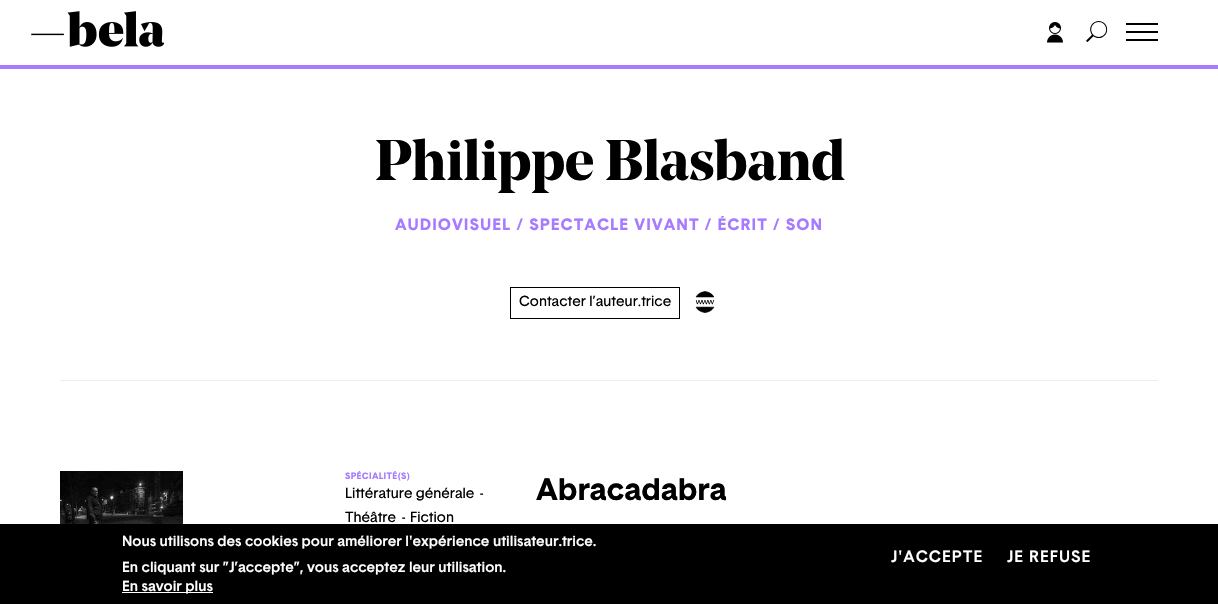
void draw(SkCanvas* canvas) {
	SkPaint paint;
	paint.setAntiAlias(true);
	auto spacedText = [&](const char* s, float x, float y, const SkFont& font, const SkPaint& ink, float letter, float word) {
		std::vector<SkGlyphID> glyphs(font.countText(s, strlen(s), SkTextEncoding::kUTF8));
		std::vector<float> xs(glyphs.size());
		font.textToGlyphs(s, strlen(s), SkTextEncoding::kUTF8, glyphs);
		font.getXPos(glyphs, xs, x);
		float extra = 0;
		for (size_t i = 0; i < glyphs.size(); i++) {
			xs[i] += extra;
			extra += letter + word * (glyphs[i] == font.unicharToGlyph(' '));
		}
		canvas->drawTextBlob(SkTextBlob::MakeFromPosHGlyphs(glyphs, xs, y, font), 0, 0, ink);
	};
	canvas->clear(0xffffffff);
	canvas->drawImageRect(SkImages::DeferredFromEncodedData(SkData::MakeFromFileName("img1.png")), SkRect::MakeXYWH(31, 11, 133, 36), SkSamplingOptions());
	canvas->drawImageRect(SkImages::DeferredFromEncodedData(SkData::MakeFromFileName("img2.png")), SkRect::MakeXYWH(1047, 22, 16, 21), SkSamplingOptions());
	canvas->drawImageRect(SkImages::DeferredFromEncodedData(SkData::MakeFromFileName("img3.png")), SkRect::MakeXYWH(1086, 21, 22, 21), SkSamplingOptions());
	paint.setColor(0xff000000);
	canvas->drawRect(SkRect::MakeXYWH(1126, 31, 32, 2), paint);
	canvas->drawRect(SkRect::MakeXYWH(1126, 23, 32, 2), paint);
	canvas->drawRect(SkRect::MakeXYWH(1126, 39, 32, 2), paint);
	paint.setColor(0xffa77bff);
	canvas->drawRect(SkRect::MakeXYWH(0, 65, 1218, 4), paint);
	SkFont f1(fontMgr->matchFamilyStyle("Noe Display", SkFontStyle::Bold()), 57);
	f1.setSubpixel(true);
	paint.setColor(0xff000000);
	spacedText("Philippe Blasband", 375, 180, f1, paint, -0.25, 0);
	SkFont f2(fontMgr->matchFamilyStyle("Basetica", SkFontStyle::Normal()), 16);
	f2.setSubpixel(true);
	paint.setColor(0xffa77bff);
	spacedText("AUDIOVISUEL / SPECTACLE VIVANT / ÉCRIT / SON", 395, 230, f2, paint, 1, 0);
	paint.setStroke(true);
	paint.setStrokeWidth(1);
	paint.setColor(0xff000000);
	canvas->drawRect(SkRect::MakeXYWH(510.5, 287.5, 169, 31), paint);
	SkFont f3(fontMgr->matchFamilyStyle("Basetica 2", SkFontStyle::Normal()), 14.2);
	f3.setSubpixel(true);
	paint.setStroke(false);
	canvas->drawString("Contacter l’auteur.trice", 519, 306, f3, paint);
	canvas->drawImageRect(SkImages::DeferredFromEncodedData(SkData::MakeFromFileName("img4.png")), SkRect::MakeXYWH(695, 291, 20, 22), SkSamplingOptions());
	paint.setColor(0xffeeeeee);
	canvas->drawRect(SkRect::MakeXYWH(60, 380, 1098, 1), paint);
	canvas->drawImageRect(SkImages::DeferredFromEncodedData(SkData::MakeFromFileName("img5.png")), SkRect::MakeXYWH(60, 471, 123, 53), SkSamplingOptions());
	SkFont f4(fontMgr->matchFamilyStyle("Basetica", SkFontStyle::Normal()), 9);
	f4.setSubpixel(true);
	paint.setColor(0xffa77bff);
	spacedText("SPÉCIALITÉ(S)", 345, 479, f4, paint, 0.3, 0);
	paint.setColor(0xff000000);
	canvas->drawString("Littérature générale", 345, 498, f3, paint);
	canvas->drawString("-", 480, 498, f3, paint);
	canvas->drawString("Théâtre", 345, 522, f3, paint);
	canvas->drawString("-", 402, 522, f3, paint);
	canvas->drawString("Fiction", 410, 522, f3, paint);
	SkFont f5(fontMgr->matchFamilyStyle("Basetica", SkFontStyle::Normal()), 30.25);
	f5.setSubpixel(true);
	canvas->drawString("Abracadabra", 536, 500, f5, paint);
	canvas->drawRect(SkRect::MakeXYWH(0, 524, 1218, 80), paint);
	SkFont f6(fontMgr->matchFamilyStyle("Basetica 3", SkFontStyle::Normal()), 14.2);
	f6.setSubpixel(true);
	paint.setColor(0xffffffff);
	canvas->drawString("Nous utilisons des cookies pour améliorer l'expérience utilisateur.trice.", 122, 546, f6, paint);
	canvas->drawString("En cliquant sur ”J’accepte”, vous acceptez leur utilisation.", 122, 572, f6, paint);
	canvas->drawRect(SkRect::MakeXYWH(122, 592, 91, 1), paint);
	canvas->drawString("En savoir plus", 122, 591, f6, paint);
	SkFont f7(fontMgr->matchFamilyStyle("Basetica 3", SkFontStyle::Normal()), 16);
	f7.setSubpixel(true);
	spacedText("J'ACCEPTE", 891, 562, f7, paint, 1, 0);
	spacedText("JE REFUSE", 1007, 562, f7, paint, 1, 0);
}
